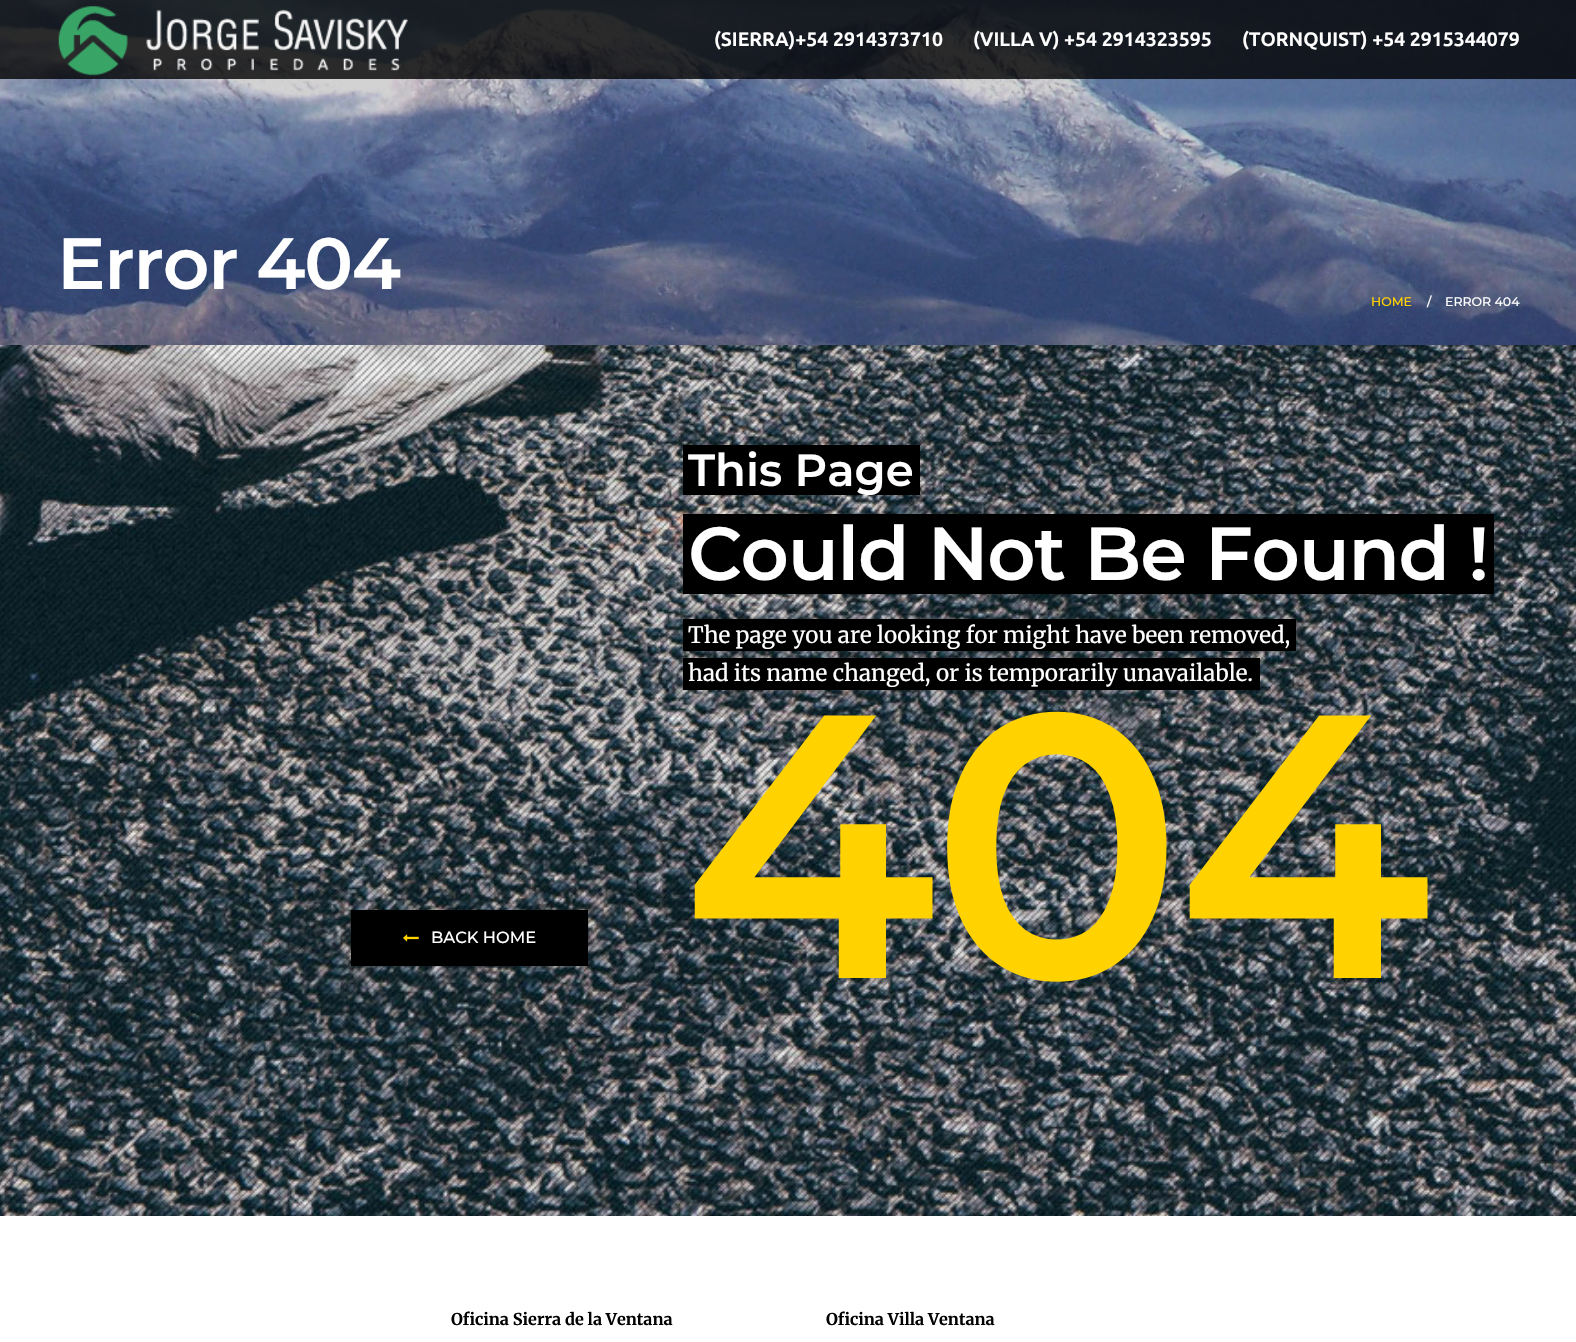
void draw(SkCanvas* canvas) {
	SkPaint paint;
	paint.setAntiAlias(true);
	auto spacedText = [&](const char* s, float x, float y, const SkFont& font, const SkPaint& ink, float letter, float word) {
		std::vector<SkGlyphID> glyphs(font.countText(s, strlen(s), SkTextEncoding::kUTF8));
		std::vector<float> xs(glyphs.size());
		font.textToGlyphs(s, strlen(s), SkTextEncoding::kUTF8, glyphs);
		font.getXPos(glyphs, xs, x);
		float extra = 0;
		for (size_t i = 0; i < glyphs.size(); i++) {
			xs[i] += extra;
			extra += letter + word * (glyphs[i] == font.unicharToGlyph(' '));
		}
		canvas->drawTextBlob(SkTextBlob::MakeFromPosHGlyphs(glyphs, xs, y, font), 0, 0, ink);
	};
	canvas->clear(0xffffffff);
	canvas->drawImageRect(SkImages::DeferredFromEncodedData(SkData::MakeFromFileName("img3.png")), SkRect::MakeXYWH(0, 0, 1576, 345), SkSamplingOptions());
	paint.setColor(0xcc000000);
	canvas->drawRect(SkRect::MakeXYWH(0, 0, 1576, 79), paint);
	canvas->drawImageRect(SkImages::DeferredFromEncodedData(SkData::MakeFromFileName("img1.png")), SkRect::MakeXYWH(58, 6, 350, 70), SkSamplingOptions());
	SkFont f1(fontMgr->matchFamilyStyle("Ubuntu", SkFontStyle::Bold()), 19.5);
	f1.setSubpixel(true);
	paint.setColor(0xffffffff);
	canvas->drawString("(SIERRA)+54 2914373710", 714, 46, f1, paint);
	canvas->drawString("(VILLA V) +54 2914323595", 973, 46, f1, paint);
	canvas->drawString("(TORNQUIST) +54 2915344079", 1242, 46, f1, paint);
	canvas->drawImageRect(SkImages::DeferredFromEncodedData(SkData::MakeFromFileName("img2.png")), SkRect::MakeXYWH(0, 345, 1576, 871), SkSamplingOptions());
	SkFont f2(fontMgr->matchFamilyStyle("Montserrat", SkFontStyle(600, SkFontStyle::kNormal_Width, SkFontStyle::kUpright_Slant)), 72.5);
	f2.setSubpixel(true);
	spacedText("Error 404", 57, 289, f2, paint, -1.25, 0);
	SkFont f3(fontMgr->matchFamilyStyle("Montserrat", SkFontStyle(500, SkFontStyle::kNormal_Width, SkFontStyle::kUpright_Slant)), 12.5);
	f3.setSubpixel(true);
	paint.setColor(0xffffd200);
	canvas->drawString("HOME", 1371, 306, f3, paint);
	paint.setColor(0xffffffff);
	canvas->drawString("/", 1427, 306, f3, paint);
	canvas->drawString("ERROR 404", 1445, 306, f3, paint);
	paint.setColor(0xff000000);
	canvas->drawRect(SkRect::MakeXYWH(683, 445, 237, 50), paint);
	SkFont f4(fontMgr->matchFamilyStyle("Montserrat", SkFontStyle(600, SkFontStyle::kNormal_Width, SkFontStyle::kUpright_Slant)), 45);
	f4.setSubpixel(true);
	paint.setColor(0xffffffff);
	canvas->drawString("This Page", 688, 486, f4, paint);
	paint.setColor(0xff000000);
	canvas->drawRect(SkRect::MakeXYWH(683, 514, 811, 80), paint);
	SkFont f5(fontMgr->matchFamilyStyle("Montserrat", SkFontStyle(600, SkFontStyle::kNormal_Width, SkFontStyle::kUpright_Slant)), 75);
	f5.setSubpixel(true);
	paint.setColor(0xffffffff);
	spacedText("Could Not Be Found !", 688, 580, f5, paint, -1.25, 0);
	paint.setColor(0xff000000);
	canvas->drawRect(SkRect::MakeXYWH(683, 619, 613, 32), paint);
	SkFont f6(fontMgr->matchFamilyStyle("Merriweather", SkFontStyle::Normal()), 22.5);
	f6.setSubpixel(true);
	paint.setColor(0xffffffff);
	canvas->drawString("The page you are looking for might have been removed,", 688, 643, f6, paint);
	paint.setColor(0xff000000);
	canvas->drawRect(SkRect::MakeXYWH(683, 658, 577, 32), paint);
	paint.setColor(0xffffffff);
	canvas->drawString("had its name changed, or is temporarily unavailable.", 688, 681, f6, paint);
	paint.setColor(0xff000000);
	canvas->drawRect(SkRect::MakeXYWH(351, 910, 237, 56), paint);
	canvas->drawImageRect(SkImages::DeferredFromEncodedData(SkData::MakeFromFileName("img4.png")), SkRect::MakeXYWH(403, 934, 16, 8), SkSamplingOptions());
	SkFont f7(fontMgr->matchFamilyStyle("Montserrat", SkFontStyle(500, SkFontStyle::kNormal_Width, SkFontStyle::kUpright_Slant)), 16.25);
	f7.setSubpixel(true);
	paint.setColor(0xffffffff);
	canvas->drawString("BACK HOME", 431, 943, f7, paint);
	SkFont f8(fontMgr->matchFamilyStyle("Montserrat", SkFontStyle(600, SkFontStyle::kNormal_Width, SkFontStyle::kUpright_Slant)), 375);
	f8.setSubpixel(true);
	paint.setColor(0xffffd200);
	spacedText("404", 682, 978, f8, paint, -6, 0);
	SkFont f9(fontMgr->matchFamilyStyle("Merriweather", SkFontStyle::Bold()), 16.25);
	f9.setSubpixel(true);
	paint.setColor(0xff000000);
	canvas->drawString("Oficina Sierra de la Ventana", 451, 1325, f9, paint);
	canvas->drawString("Oficina Villa Ventana", 826, 1325, f9, paint);
}
